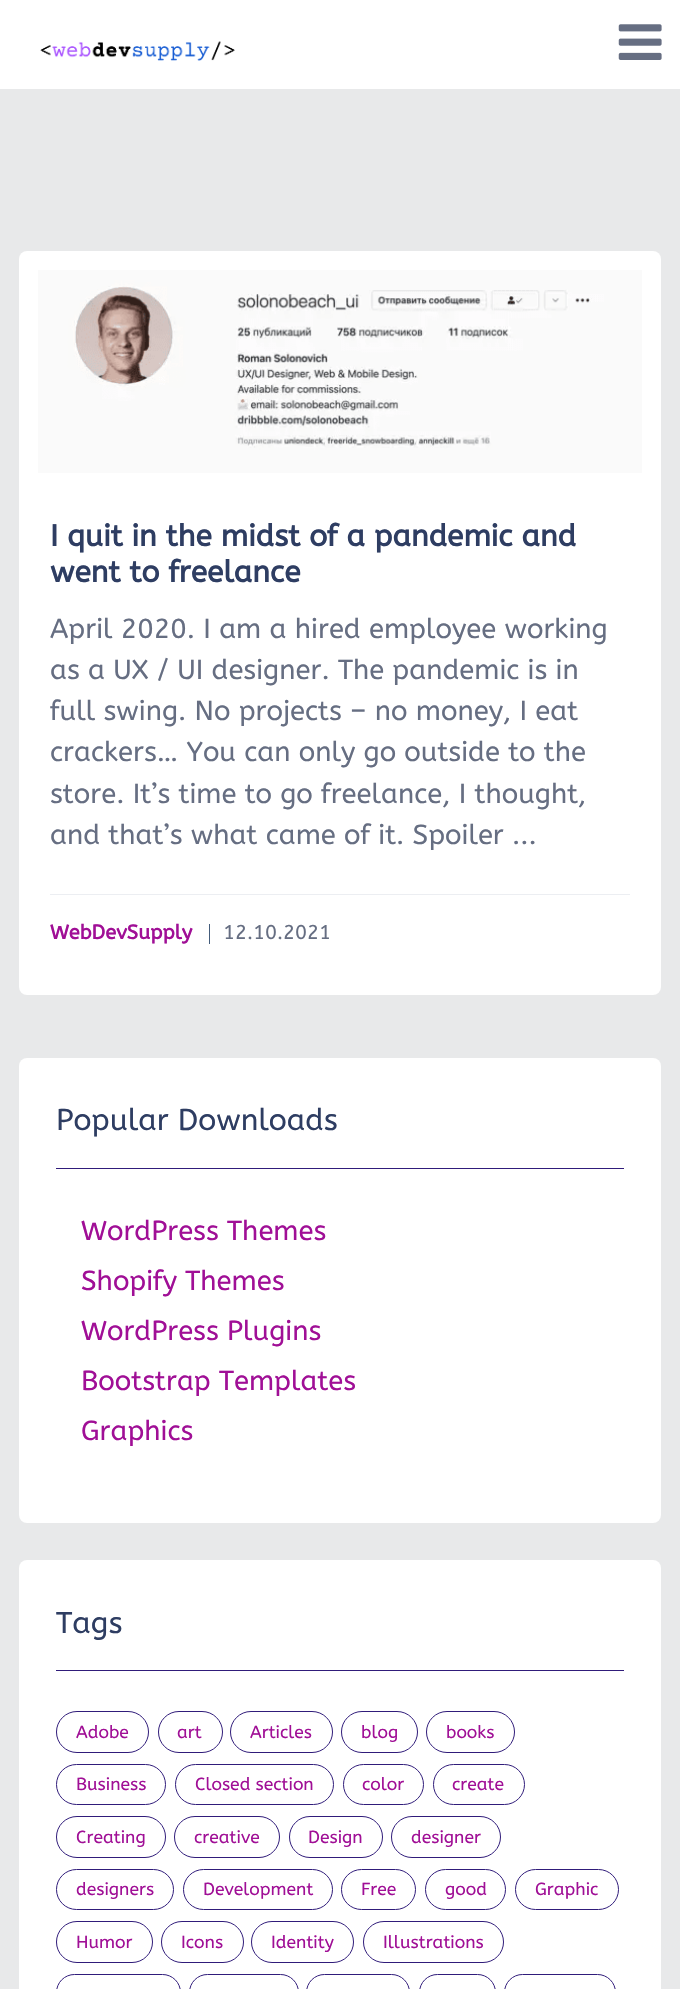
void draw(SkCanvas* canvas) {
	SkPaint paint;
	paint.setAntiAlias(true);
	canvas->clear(0xffe8e9ea);
	paint.setColor(0xffffffff);
	canvas->drawRect(SkRect::MakeXYWH(0, 0, 680, 89), paint);
	canvas->drawImageRect(SkImages::DeferredFromEncodedData(SkData::MakeFromFileName("img1.png")), SkRect::MakeXYWH(40, 41, 195, 20), SkSamplingOptions());
	canvas->drawImageRect(SkImages::DeferredFromEncodedData(SkData::MakeFromFileName("img2.png")), SkRect::MakeXYWH(618, 24, 44, 36), SkSamplingOptions());
	canvas->drawRoundRect(SkRect::MakeXYWH(19, 251, 642, 744), 8, 8, paint);
	canvas->drawImageRect(SkImages::DeferredFromEncodedData(SkData::MakeFromFileName("img3.png")), SkRect::MakeXYWH(38, 270, 604, 203), SkSamplingOptions());
	SkFont f1(fontMgr->matchFamilyStyle("ABeeZee", SkFontStyle::Bold()), 30);
	f1.setSubpixel(true);
	paint.setColor(0xff2e3d62);
	canvas->drawString("I quit in the midst of a pandemic and", 50, 546, f1, paint);
	canvas->drawString("went to freelance", 50, 582, f1, paint);
	SkFont f2(fontMgr->matchFamilyStyle("ABeeZee", SkFontStyle::Normal()), 27.5);
	f2.setSubpixel(true);
	paint.setColor(0xff666e82);
	canvas->drawString("April 2020. I am a hired employee working", 50, 638, f2, paint);
	canvas->drawString("as a UX / UI designer. The pandemic is in", 50, 679, f2, paint);
	canvas->drawString("full swing. No projects – no money, I eat", 50, 720, f2, paint);
	canvas->drawString("crackers… You can only go outside to the", 50, 761, f2, paint);
	canvas->drawString("store. It’s time to go freelance, I thought,", 50, 803, f2, paint);
	canvas->drawString("and that’s what came of it. Spoiler ...", 50, 844, f2, paint);
	paint.setColor(0xffeceef2);
	canvas->drawRect(SkRect::MakeXYWH(50, 894, 580, 1), paint);
	SkFont f3(fontMgr->matchFamilyStyle("ABeeZee", SkFontStyle::Bold()), 20);
	f3.setSubpixel(true);
	paint.setColor(0xffa00f96);
	canvas->drawString("WebDevSupply", 50, 939, f3, paint);
	paint.setColor(0xff445c7b);
	canvas->drawRect(SkRect::MakeXYWH(209, 924, 1, 20), paint);
	SkFont f4(fontMgr->matchFamilyStyle("ABeeZee", SkFontStyle::Normal()), 20);
	f4.setSubpixel(true);
	paint.setColor(0xff666e82);
	canvas->drawString("12.10.2021", 223, 939, f4, paint);
	paint.setColor(0xffffffff);
	canvas->drawRoundRect(SkRect::MakeXYWH(19, 1058, 642, 465), 8, 8, paint);
	paint.setColor(0xff301c7a);
	canvas->drawRect(SkRect::MakeXYWH(56, 1168, 568, 1), paint);
	SkFont f5(fontMgr->matchFamilyStyle("ABeeZee", SkFontStyle::Normal()), 30);
	f5.setSubpixel(true);
	paint.setColor(0xff2e3d62);
	canvas->drawString("Popular Downloads", 56, 1130, f5, paint);
	paint.setColor(0xffa00f96);
	canvas->drawString("WordPress Themes", 81, 1240, f2, paint);
	canvas->drawString("Shopify Themes", 81, 1290, f2, paint);
	canvas->drawString("WordPress Plugins", 81, 1340, f2, paint);
	canvas->drawString("Bootstrap Templates", 81, 1390, f2, paint);
	canvas->drawString("Graphics", 81, 1440, f2, paint);
	paint.setColor(0xffffffff);
	canvas->drawRoundRect(SkRect::MakeXYWH(19, 1560, 642, 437), 8, 8, paint);
	paint.setColor(0xff301c7a);
	canvas->drawRect(SkRect::MakeXYWH(56, 1670, 568, 1), paint);
	paint.setColor(0xff2e3d62);
	canvas->drawString("Tags", 56, 1633, f5, paint);
	paint.setStroke(true);
	paint.setStrokeWidth(1);
	paint.setColor(0xff301c7a);
	canvas->drawRoundRect(SkRect::MakeXYWH(56.5, 1711.5, 92, 41), 20.5, 20.5, paint);
	SkFont f6(fontMgr->matchFamilyStyle("ABeeZee", SkFontStyle::Normal()), 17.5);
	f6.setSubpixel(true);
	paint.setStroke(false);
	paint.setColor(0xffa00f96);
	canvas->drawString("Adobe", 76, 1738, f6, paint);
	paint.setStroke(true);
	paint.setColor(0xff301c7a);
	canvas->drawRoundRect(SkRect::MakeXYWH(158.5, 1711.5, 64, 41), 20.5, 20.5, paint);
	paint.setStroke(false);
	paint.setColor(0xffa00f96);
	canvas->drawString("art", 177, 1738, f6, paint);
	paint.setStroke(true);
	paint.setColor(0xff301c7a);
	canvas->drawRoundRect(SkRect::MakeXYWH(230.5, 1711.5, 102, 41), 20.5, 20.5, paint);
	paint.setStroke(false);
	paint.setColor(0xffa00f96);
	canvas->drawString("Articles", 250, 1738, f6, paint);
	paint.setStroke(true);
	paint.setColor(0xff301c7a);
	canvas->drawRoundRect(SkRect::MakeXYWH(341.5, 1711.5, 76, 41), 20.5, 20.5, paint);
	paint.setStroke(false);
	paint.setColor(0xffa00f96);
	canvas->drawString("blog", 361, 1738, f6, paint);
	paint.setStroke(true);
	paint.setColor(0xff301c7a);
	canvas->drawRoundRect(SkRect::MakeXYWH(426.5, 1711.5, 88, 41), 20.5, 20.5, paint);
	paint.setStroke(false);
	paint.setColor(0xffa00f96);
	canvas->drawString("books", 446, 1738, f6, paint);
	paint.setStroke(true);
	paint.setColor(0xff301c7a);
	canvas->drawRoundRect(SkRect::MakeXYWH(56.5, 1764.5, 109, 40), 20, 20, paint);
	paint.setStroke(false);
	paint.setColor(0xffa00f96);
	canvas->drawString("Business", 76, 1790, f6, paint);
	paint.setStroke(true);
	paint.setColor(0xff301c7a);
	canvas->drawRoundRect(SkRect::MakeXYWH(175.5, 1764.5, 158, 40), 20, 20, paint);
	paint.setStroke(false);
	paint.setColor(0xffa00f96);
	canvas->drawString("Closed section", 195, 1790, f6, paint);
	paint.setStroke(true);
	paint.setColor(0xff301c7a);
	canvas->drawRoundRect(SkRect::MakeXYWH(343.5, 1764.5, 80, 40), 20, 20, paint);
	paint.setStroke(false);
	paint.setColor(0xffa00f96);
	canvas->drawString("color", 362, 1790, f6, paint);
	paint.setStroke(true);
	paint.setColor(0xff301c7a);
	canvas->drawRoundRect(SkRect::MakeXYWH(433.5, 1764.5, 91, 40), 20, 20, paint);
	paint.setStroke(false);
	paint.setColor(0xffa00f96);
	canvas->drawString("create", 452, 1790, f6, paint);
	paint.setStroke(true);
	paint.setColor(0xff301c7a);
	canvas->drawRoundRect(SkRect::MakeXYWH(56.5, 1816.5, 109, 41), 20.5, 20.5, paint);
	paint.setStroke(false);
	paint.setColor(0xffa00f96);
	canvas->drawString("Creating", 76, 1843, f6, paint);
	paint.setStroke(true);
	paint.setColor(0xff301c7a);
	canvas->drawRoundRect(SkRect::MakeXYWH(174.5, 1816.5, 105, 41), 20.5, 20.5, paint);
	paint.setStroke(false);
	paint.setColor(0xffa00f96);
	canvas->drawString("creative", 194, 1843, f6, paint);
	paint.setStroke(true);
	paint.setColor(0xff301c7a);
	canvas->drawRoundRect(SkRect::MakeXYWH(289.5, 1816.5, 93, 41), 20.5, 20.5, paint);
	paint.setStroke(false);
	paint.setColor(0xffa00f96);
	canvas->drawString("Design", 308, 1843, f6, paint);
	paint.setStroke(true);
	paint.setColor(0xff301c7a);
	canvas->drawRoundRect(SkRect::MakeXYWH(391.5, 1816.5, 109, 41), 20.5, 20.5, paint);
	paint.setStroke(false);
	paint.setColor(0xffa00f96);
	canvas->drawString("designer", 411, 1843, f6, paint);
	paint.setStroke(true);
	paint.setColor(0xff301c7a);
	canvas->drawRoundRect(SkRect::MakeXYWH(56.5, 1869.5, 117, 40), 20, 20, paint);
	paint.setStroke(false);
	paint.setColor(0xffa00f96);
	canvas->drawString("designers", 76, 1895, f6, paint);
	paint.setStroke(true);
	paint.setColor(0xff301c7a);
	canvas->drawRoundRect(SkRect::MakeXYWH(183.5, 1869.5, 149, 40), 20, 20, paint);
	paint.setStroke(false);
	paint.setColor(0xffa00f96);
	canvas->drawString("Development", 203, 1895, f6, paint);
	paint.setStroke(true);
	paint.setColor(0xff301c7a);
	canvas->drawRoundRect(SkRect::MakeXYWH(341.5, 1869.5, 74, 40), 20, 20, paint);
	paint.setStroke(false);
	paint.setColor(0xffa00f96);
	canvas->drawString("Free", 361, 1895, f6, paint);
	paint.setStroke(true);
	paint.setColor(0xff301c7a);
	canvas->drawRoundRect(SkRect::MakeXYWH(425.5, 1869.5, 80, 40), 20, 20, paint);
	paint.setStroke(false);
	paint.setColor(0xffa00f96);
	canvas->drawString("good", 445, 1895, f6, paint);
	paint.setStroke(true);
	paint.setColor(0xff301c7a);
	canvas->drawRoundRect(SkRect::MakeXYWH(515.5, 1869.5, 103, 40), 20, 20, paint);
	paint.setStroke(false);
	paint.setColor(0xffa00f96);
	canvas->drawString("Graphic", 535, 1895, f6, paint);
	paint.setStroke(true);
	paint.setColor(0xff301c7a);
	canvas->drawRoundRect(SkRect::MakeXYWH(56.5, 1921.5, 96, 41), 20.5, 20.5, paint);
	paint.setStroke(false);
	paint.setColor(0xffa00f96);
	canvas->drawString("Humor", 76, 1948, f6, paint);
	paint.setStroke(true);
	paint.setColor(0xff301c7a);
	canvas->drawRoundRect(SkRect::MakeXYWH(161.5, 1921.5, 82, 41), 20.5, 20.5, paint);
	paint.setStroke(false);
	paint.setColor(0xffa00f96);
	canvas->drawString("Icons", 181, 1948, f6, paint);
	paint.setStroke(true);
	paint.setColor(0xff301c7a);
	canvas->drawRoundRect(SkRect::MakeXYWH(251.5, 1921.5, 102, 41), 20.5, 20.5, paint);
	paint.setStroke(false);
	paint.setColor(0xffa00f96);
	canvas->drawString("Identity", 271, 1948, f6, paint);
	paint.setStroke(true);
	paint.setColor(0xff301c7a);
	canvas->drawRoundRect(SkRect::MakeXYWH(363.5, 1921.5, 140, 41), 20.5, 20.5, paint);
	paint.setStroke(false);
	paint.setColor(0xffa00f96);
	canvas->drawString("Illustrations", 383, 1948, f6, paint);
	paint.setStroke(true);
	paint.setColor(0xff301c7a);
	canvas->drawRoundRect(SkRect::MakeXYWH(56.5, 1974.5, 124, 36), 20, 20, paint);
	canvas->drawRoundRect(SkRect::MakeXYWH(189.5, 1974.5, 109, 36), 20, 20, paint);
	canvas->drawRoundRect(SkRect::MakeXYWH(306.5, 1974.5, 103, 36), 20, 20, paint);
	canvas->drawRoundRect(SkRect::MakeXYWH(419.5, 1974.5, 76, 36), 20, 20, paint);
	canvas->drawRoundRect(SkRect::MakeXYWH(504.5, 1974.5, 111, 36), 20, 20, paint);
}
